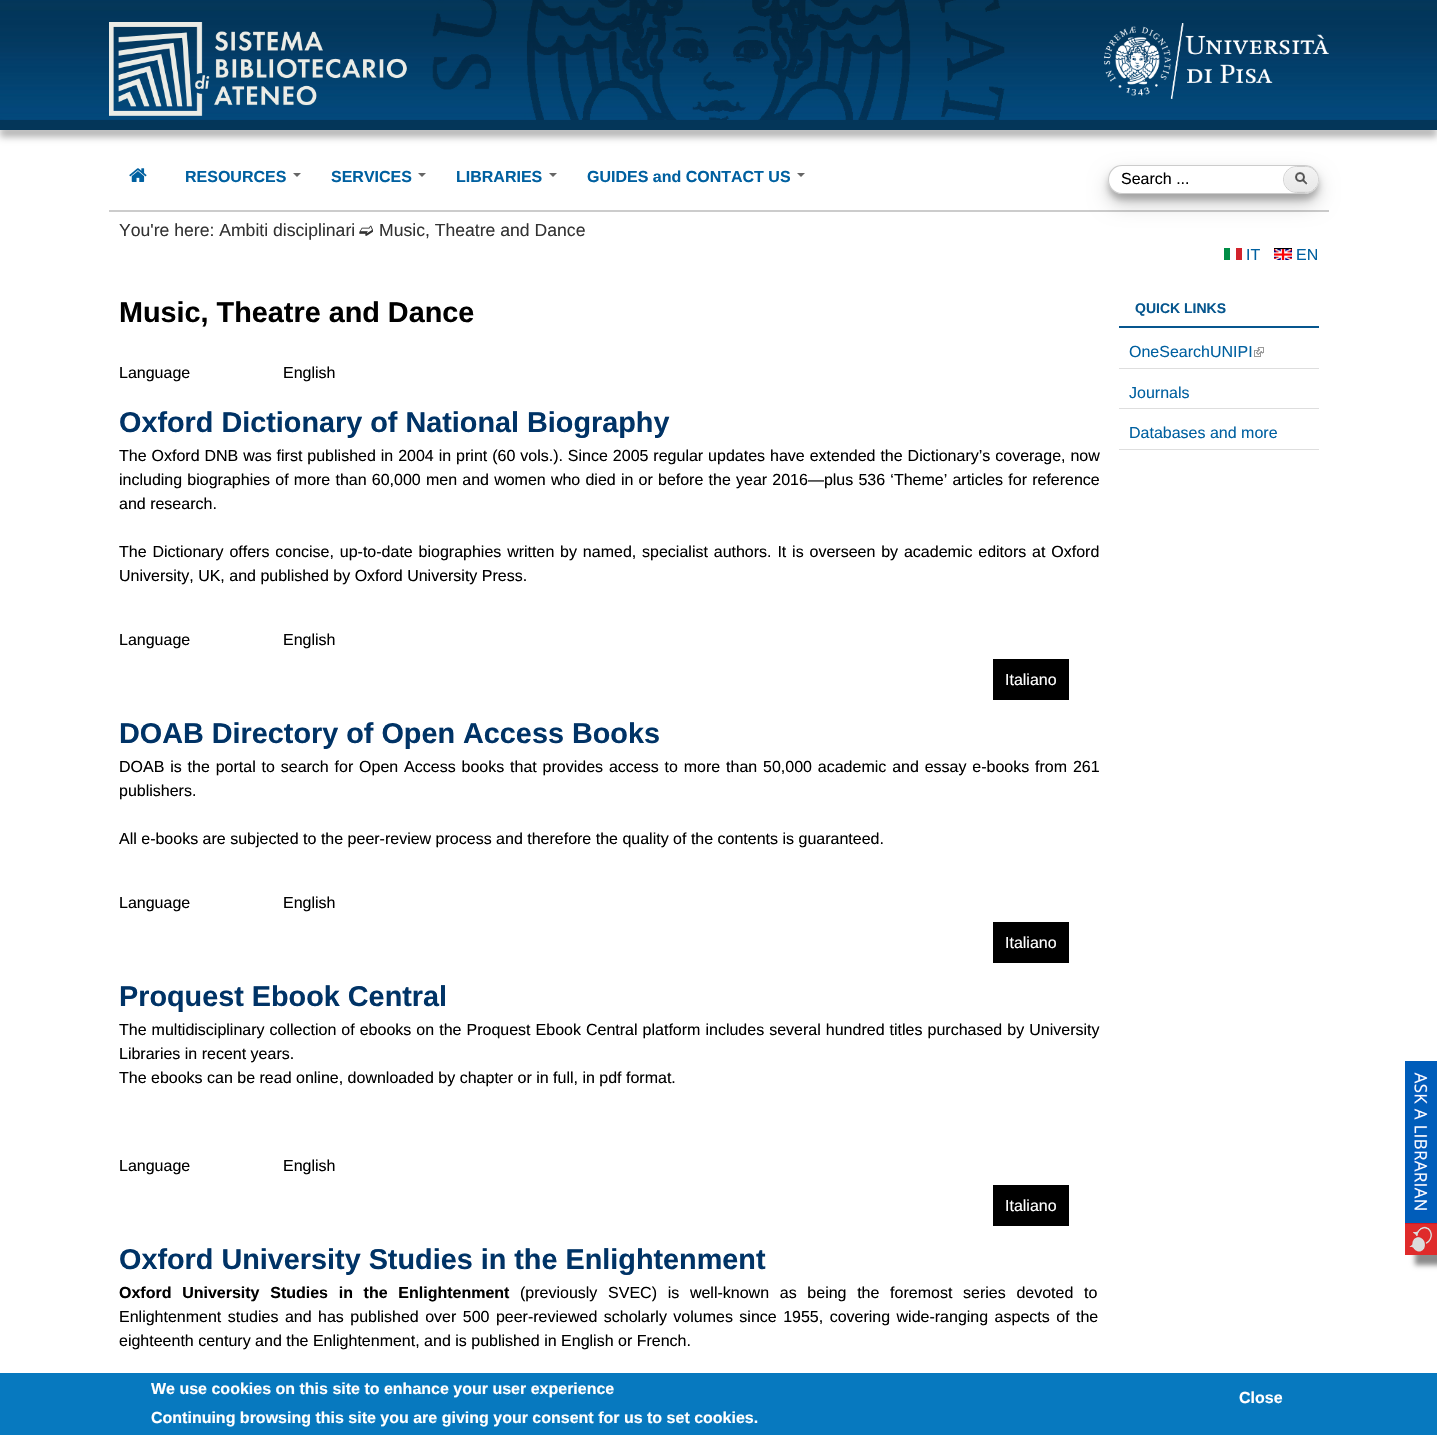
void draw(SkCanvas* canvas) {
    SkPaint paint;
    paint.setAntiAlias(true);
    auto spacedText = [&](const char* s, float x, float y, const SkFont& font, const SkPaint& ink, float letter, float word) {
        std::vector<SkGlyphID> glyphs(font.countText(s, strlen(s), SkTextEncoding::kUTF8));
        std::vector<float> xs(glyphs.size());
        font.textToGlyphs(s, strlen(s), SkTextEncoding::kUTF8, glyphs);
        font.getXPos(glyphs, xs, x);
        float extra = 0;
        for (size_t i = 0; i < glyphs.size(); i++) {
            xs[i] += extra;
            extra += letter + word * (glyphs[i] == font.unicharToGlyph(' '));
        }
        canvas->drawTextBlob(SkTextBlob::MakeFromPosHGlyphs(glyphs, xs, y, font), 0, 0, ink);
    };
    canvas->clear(0xFFFFFFFF);
    canvas->drawImageRect(SkImages::DeferredFromEncodedData(SkData::MakeFromFileName("img1.png")), SkRect::MakeXYWH(0, 0, 1437, 120), SkSamplingOptions());
    canvas->drawImageRect(SkImages::DeferredFromEncodedData(SkData::MakeFromFileName("img2.png")), SkRect::MakeXYWH(432, 0, 573, 120), SkSamplingOptions());
    canvas->drawImageRect(SkImages::DeferredFromEncodedData(SkData::MakeFromFileName("img3.png")), SkRect::MakeXYWH(109, 22, 298, 94), SkSamplingOptions());
    canvas->drawImageRect(SkImages::DeferredFromEncodedData(SkData::MakeFromFileName("img4.png")), SkRect::MakeXYWH(1104, 23, 225, 76), SkSamplingOptions());
    paint.setColor(0xFFB3B3B3);
    paint.setMaskFilter(SkMaskFilter::MakeBlur(kNormal_SkBlurStyle, 3.5f));
    canvas->drawRect(SkRect::MakeXYWH(0, 127, 1437, 10), paint);
    paint.setMaskFilter(nullptr);
    paint.setColor(0xFF043659);
    canvas->drawRect(SkRect::MakeXYWH(0, 120, 1437, 10), paint);
    paint.setColor(0xFFCCCCCC);
    canvas->drawRect(SkRect::MakeXYWH(109, 210, 1220, 2), paint);
    canvas->drawImageRect(SkImages::DeferredFromEncodedData(SkData::MakeFromFileName("img5.png")), SkRect::MakeXYWH(129, 168, 18, 14), SkSamplingOptions());
    SkFont font1(fontMgr->matchFamilyStyle("Liberation Sans", SkFontStyle::Bold()), 16);
    font1.setSubpixel(true);
    paint.setColor(0xFF0060A0);
    canvas->drawString("RESOURCES", 185, 182, font1, paint);
    paint.setColor(0xFF666666);
    canvas->drawPath(SkPathBuilder().moveTo(293, 173).lineTo(301, 173).lineTo(297, 177).close().detach(), paint);
    paint.setColor(0xFF0060A0);
    canvas->drawString("SERVICES", 331, 182, font1, paint);
    paint.setColor(0xFF666666);
    canvas->drawPath(SkPathBuilder().moveTo(418, 173).lineTo(426, 173).lineTo(422, 177).close().detach(), paint);
    paint.setColor(0xFF0060A0);
    canvas->drawString("LIBRARIES", 456, 182, font1, paint);
    paint.setColor(0xFF666666);
    canvas->drawPath(SkPathBuilder().moveTo(549, 173).lineTo(557, 173).lineTo(553, 177).close().detach(), paint);
    paint.setColor(0xFF0060A0);
    canvas->drawString("GUIDES and CONTACT US", 587, 182, font1, paint);
    paint.setColor(0xFF666666);
    canvas->drawPath(SkPathBuilder().moveTo(797, 173).lineTo(805, 173).lineTo(801, 177).close().detach(), paint);
    canvas->save();
    canvas->clipPath(SkPathBuilder(SkPathFillType::kEvenOdd).moveTo(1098, 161).lineTo(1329, 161).lineTo(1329, 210).lineTo(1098, 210).close().moveTo(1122.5f, 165).lineTo(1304.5f, 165).cubicTo(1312.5f, 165, 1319, 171.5f, 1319, 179.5f).cubicTo(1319, 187.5f, 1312.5f, 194, 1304.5f, 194).lineTo(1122.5f, 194).cubicTo(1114.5f, 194, 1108, 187.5f, 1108, 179.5f).cubicTo(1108, 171.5f, 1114.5f, 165, 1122.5f, 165).close().detach(), true);
    paint.setColor(0x3B000000);
    paint.setMaskFilter(SkMaskFilter::MakeBlur(kNormal_SkBlurStyle, 3));
    canvas->drawRoundRect(SkRect::MakeXYWH(1108, 171, 211, 29), 14.5f, 14.5f, paint);
    paint.setMaskFilter(nullptr);
    canvas->restore();
    canvas->save();
    canvas->clipPath(SkPathBuilder(SkPathFillType::kEvenOdd).moveTo(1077, 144).lineTo(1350, 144).lineTo(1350, 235).lineTo(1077, 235).close().moveTo(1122.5f, 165).lineTo(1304.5f, 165).cubicTo(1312.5f, 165, 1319, 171.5f, 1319, 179.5f).cubicTo(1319, 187.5f, 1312.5f, 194, 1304.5f, 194).lineTo(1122.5f, 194).cubicTo(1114.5f, 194, 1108, 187.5f, 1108, 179.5f).cubicTo(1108, 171.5f, 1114.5f, 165, 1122.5f, 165).close().detach(), true);
    paint.setColor(0x30000000);
    paint.setMaskFilter(SkMaskFilter::MakeBlur(kNormal_SkBlurStyle, 10));
    canvas->drawRoundRect(SkRect::MakeXYWH(1108, 175, 211, 29), 14.5f, 14.5f, paint);
    paint.setMaskFilter(nullptr);
    canvas->restore();
    paint.setColor(0xFFCCCCCC);
    canvas->drawPath(SkPathBuilder(SkPathFillType::kEvenOdd).moveTo(1122, 165).lineTo(1304, 165).cubicTo(1313, 165, 1319, 171, 1319, 180).cubicTo(1319, 188, 1313, 194, 1304, 194).lineTo(1122, 194).cubicTo(1114, 194, 1108, 188, 1108, 180).cubicTo(1108, 171, 1114, 165, 1122, 165).close().moveTo(1122, 166).lineTo(1304, 166).cubicTo(1313, 166, 1319, 172, 1319, 180).cubicTo(1319, 187, 1313, 193, 1304, 193).lineTo(1122, 193).cubicTo(1115, 193, 1109, 187, 1109, 180).cubicTo(1109, 172, 1115, 166, 1122, 166).close().detach(), paint);
    SkFont font2(fontMgr->matchFamilyStyle("Liberation Sans", SkFontStyle::Normal()), 16);
    font2.setSubpixel(true);
    paint.setColor(0xFF000000);
    canvas->drawString("Search ...", 1121, 184, font2, paint);
    paint.setStyle(SkPaint::kStroke_Style);
    paint.setStrokeWidth(1);
    paint.setColor(0xFFCCCCCC);
    canvas->drawRoundRect(SkRect::MakeXYWH(1283.5f, 166.5f, 35, 26), 13, 13, paint);
    canvas->drawImageRect(SkImages::DeferredFromEncodedData(SkData::MakeFromFileName("img6.png")), SkRect::MakeXYWH(1284, 167, 34, 25), SkSamplingOptions());
    SkFont font3(fontMgr->matchFamilyStyle("Liberation Sans", SkFontStyle::Normal()), 17.6f);
    font3.setSubpixel(true);
    paint.setStyle(SkPaint::kFill_Style);
    paint.setColor(0xFF333333);
    canvas->drawString("You're here: Ambiti disciplinari", 119, 236, font3, paint);
    SkFont font4(fontMgr->matchFamilyStyle("DejaVu Sans", SkFontStyle::Normal()), 17.6f);
    font4.setSubpixel(true);
    canvas->drawString("➫", 359, 236, font4, paint);
    canvas->drawString("Music, Theatre and Dance", 379, 236, font3, paint);
    canvas->drawImageRect(SkImages::DeferredFromEncodedData(SkData::MakeFromFileName("img7.png")), SkRect::MakeXYWH(1224, 248, 18, 12), SkSamplingOptions());
    paint.setColor(0xFF0060A0);
    canvas->drawString("IT", 1246, 260, font2, paint);
    canvas->drawImageRect(SkImages::DeferredFromEncodedData(SkData::MakeFromFileName("img8.png")), SkRect::MakeXYWH(1274, 248, 18, 12), SkSamplingOptions());
    canvas->drawString("EN", 1296, 260, font2, paint);
    SkFont font5(fontMgr->matchFamilyStyle("Liberation Sans", SkFontStyle::Bold()), 28.8f);
    font5.setSubpixel(true);
    paint.setColor(0xFF000000);
    canvas->drawString("Music, Theatre and Dance", 119, 322, font5, paint);
    canvas->drawString("Language", 119, 378, font2, paint);
    canvas->drawString("English", 283, 378, font2, paint);
    paint.setColor(0xFF003366);
    canvas->drawString("Oxford Dictionary of National Biography", 119, 432, font5, paint);
    paint.setColor(0xFF000000);
    spacedText("The Oxford DNB was first published in 2004 in print (60 vols.). Since 2005 regular updates have extended the Dictionary’s coverage, now", 119, 461, font2, paint, 0, 0.5f);
    spacedText("including biographies of more than 60,000 men and women who died in or before the year 2016—plus 536 ‘Theme’ articles for reference", 119, 485, font2, paint, 0, 0.75f);
    canvas->drawString("and research.", 119, 509, font2, paint);
    spacedText("The Dictionary offers concise, up-to-date biographies written by named, specialist authors. It is overseen by academic editors at Oxford", 119, 557, font2, paint, 0, 1.4f);
    canvas->drawString("University, UK, and published by Oxford University Press.", 119, 581, font2, paint);
    canvas->drawString("Language", 119, 645, font2, paint);
    canvas->drawString("English", 283, 645, font2, paint);
    canvas->drawRect(SkRect::MakeXYWH(993, 659, 76, 41), paint);
    paint.setColor(0xFFFFFFFF);
    canvas->drawString("Italiano", 1005, 685, font2, paint);
    paint.setColor(0xFF003366);
    canvas->drawString("DOAB Directory of Open Access Books", 119, 743, font5, paint);
    paint.setColor(0xFF000000);
    spacedText("DOAB is the portal to search for Open Access books that provides access to more than 50,000 academic and essay e-books from 261", 119, 772, font2, paint, 0, 1.4f);
    canvas->drawString("publishers.", 119, 796, font2, paint);
    canvas->drawString("All e-books are subjected to the peer-review process and therefore the quality of the contents is guaranteed.", 119, 844, font2, paint);
    canvas->drawString("Language", 119, 908, font2, paint);
    canvas->drawString("English", 283, 908, font2, paint);
    canvas->drawRect(SkRect::MakeXYWH(993, 922, 76, 41), paint);
    paint.setColor(0xFFFFFFFF);
    canvas->drawString("Italiano", 1005, 948, font2, paint);
    paint.setColor(0xFF003366);
    canvas->drawString("Proquest Ebook Central", 119, 1006, font5, paint);
    paint.setColor(0xFF000000);
    spacedText("The multidisciplinary collection of ebooks on the Proquest Ebook Central platform includes several hundred titles purchased by University", 119, 1035, font2, paint, 0, 0.6f);
    canvas->drawString("Libraries in recent years.", 119, 1059, font2, paint);
    canvas->drawString("The ebooks can be read online, downloaded by chapter or in full, in pdf format.", 119, 1083, font2, paint);
    canvas->drawString("Language", 119, 1171, font2, paint);
    canvas->drawString("English", 283, 1171, font2, paint);
    canvas->drawRect(SkRect::MakeXYWH(993, 1185, 76, 41), paint);
    paint.setColor(0xFFFFFFFF);
    canvas->drawString("Italiano", 1005, 1211, font2, paint);
    paint.setColor(0xFF003366);
    canvas->drawString("Oxford University Studies in the Enlightenment", 119, 1269, font5, paint);
    paint.setColor(0xFF000000);
    spacedText("Oxford University Studies in the Enlightenment", 119, 1298, font1, paint, 0, 6.25f);
    spacedText("(previously SVEC) is well-known as being the foremost series devoted to", 520, 1298, font2, paint, 0, 6.25f);
    spacedText("Enlightenment studies and has published over 500 peer-reviewed scholarly volumes since 1955, covering wide-ranging aspects of the", 119, 1322, font2, paint, 0, 2);
    canvas->drawString("eighteenth century and the Enlightenment, and is published in English or French.", 119, 1346, font2, paint);
    paint.setColor(0xFF8A8A8A);
    paint.setMaskFilter(SkMaskFilter::MakeBlur(kNormal_SkBlurStyle, 2.5f));
    canvas->drawRect(SkRect::MakeXYWH(1415, 1071, 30, 194), paint);
    paint.setMaskFilter(nullptr);
    canvas->drawImageRect(SkImages::DeferredFromEncodedData(SkData::MakeFromFileName("img9.png")), SkRect::MakeXYWH(1405, 1061, 32, 194), SkSamplingOptions());
    paint.setColor(0xFF06568E);
    canvas->drawRect(SkRect::MakeXYWH(1119, 326, 200, 2), paint);
    SkFont font6(fontMgr->matchFamilyStyle("Liberation Sans", SkFontStyle::Bold()), 14);
    font6.setSubpixel(true);
    canvas->drawString("QUICK LINKS", 1135, 313, font6, paint);
    paint.setColor(0xFFDEDEDE);
    canvas->drawRect(SkRect::MakeXYWH(1119, 368, 200, 1), paint);
    paint.setColor(0xFF0060A0);
    canvas->drawString("OneSearchUNIPI", 1129, 357, font2, paint);
    canvas->drawImageRect(SkImages::DeferredFromEncodedData(SkData::MakeFromFileName("img10.png")), SkRect::MakeXYWH(1254, 347, 10, 10), SkSamplingOptions());
    paint.setColor(0xFFDEDEDE);
    canvas->drawRect(SkRect::MakeXYWH(1119, 408, 200, 1), paint);
    paint.setColor(0xFF0060A0);
    canvas->drawString("Journals", 1129, 398, font2, paint);
    paint.setColor(0xFFDEDEDE);
    canvas->drawRect(SkRect::MakeXYWH(1119, 449, 200, 1), paint);
    paint.setColor(0xFF0060A0);
    canvas->drawString("Databases and more", 1129, 438, font2, paint);
    paint.setColor(0xFF0779BF);
    canvas->drawRect(SkRect::MakeXYWH(0, 1373, 1437, 62), paint);
    paint.setColor(0xFFFFFFFF);
    canvas->drawString("We use cookies on this site to enhance your user experience", 151, 1394, font1, paint);
    canvas->drawString("Continuing browsing this site you are giving your consent for us to set cookies.", 151, 1423, font1, paint);
    canvas->drawString("Close", 1239, 1403, font1, paint);
}
